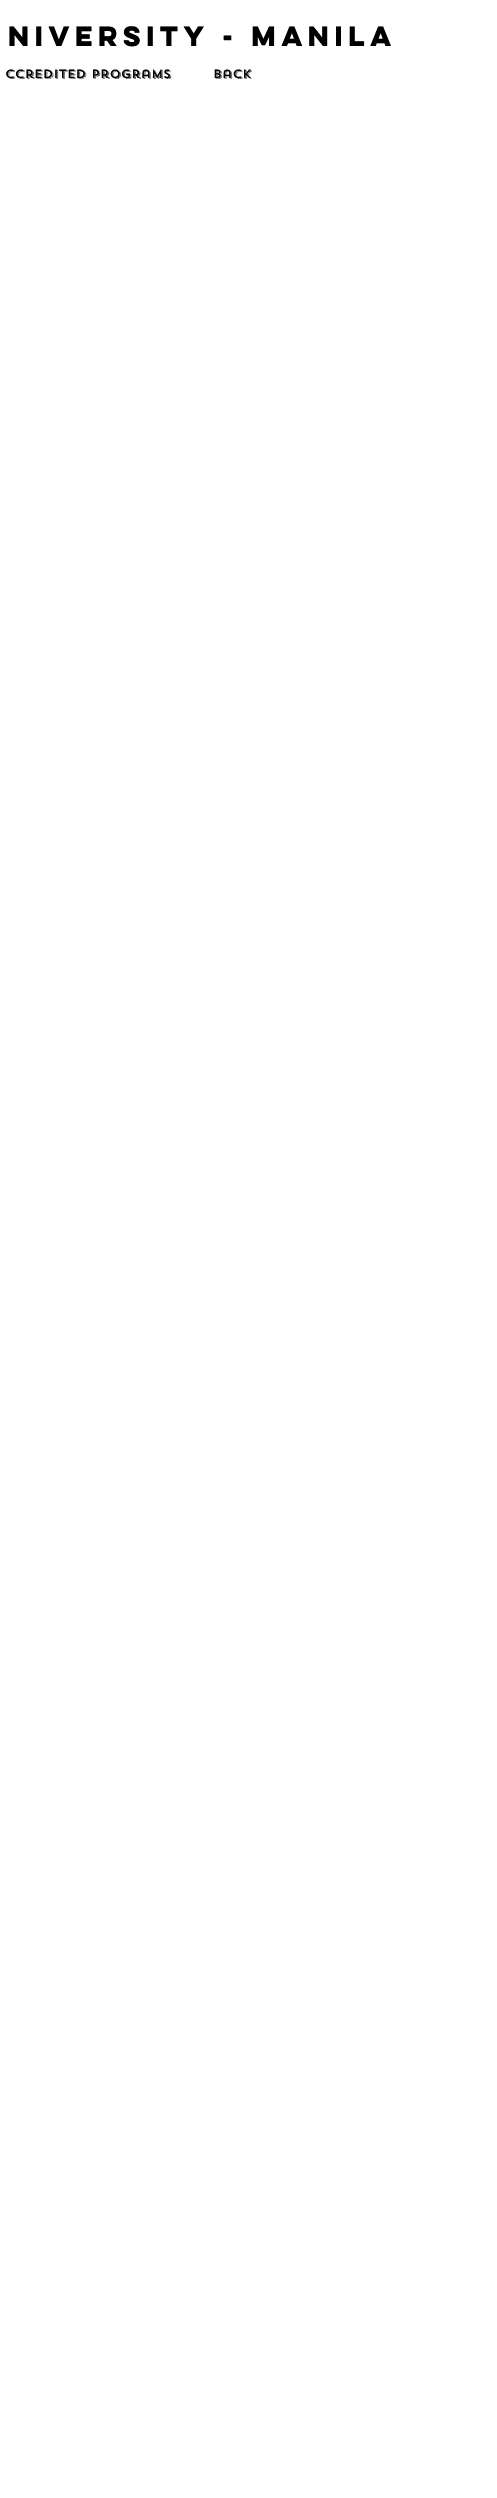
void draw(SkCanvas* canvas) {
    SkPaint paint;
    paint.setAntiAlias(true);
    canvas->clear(0xFFFFFFFF);
    SkFont font1(fontMgr->matchFamilyStyle("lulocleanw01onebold", SkFontStyle::Bold()), 25);
    font1.setSubpixel(true);
    paint.setColor(0xFF000000);
    canvas->drawString("niversity - manila", 8, 46, font1, paint);
    SkFont font2(fontMgr->matchFamilyStyle("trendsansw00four", SkFontStyle(500, SkFontStyle::kNormal_Width, SkFontStyle::kUpright_Slant)), 12);
    font2.setSubpixel(true);
    canvas->drawString("ccredited programs", 5, 78, font2, paint);
    canvas->drawString("back", 213, 78, font2, paint);
}
